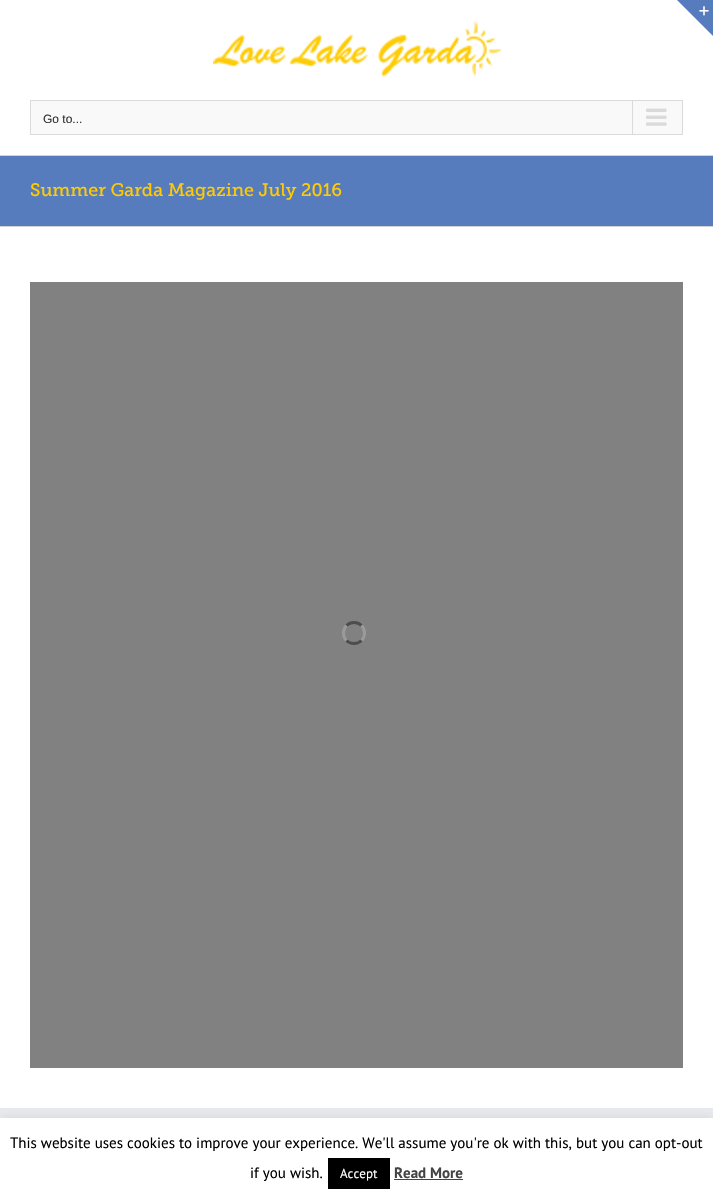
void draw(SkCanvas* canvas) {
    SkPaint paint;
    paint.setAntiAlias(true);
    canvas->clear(0xFFFFFFFF);
    paint.setColor(0xFF567CBD);
    canvas->drawPath(SkPathBuilder().moveTo(677, 0).lineTo(713, 0).lineTo(713, 36).close().detach(), paint);
    canvas->drawImageRect(SkImages::DeferredFromEncodedData(SkData::MakeFromFileName("img1.png")), SkRect::MakeXYWH(699, 6, 10, 10), SkSamplingOptions());
    canvas->drawImageRect(SkImages::DeferredFromEncodedData(SkData::MakeFromFileName("img2.png")), SkRect::MakeXYWH(213, 20, 288, 57), SkSamplingOptions());
    paint.setColor(0xFFF9F9F9);
    canvas->drawRect(SkRect::MakeXYWH(30.5f, 100.5f, 652, 34), paint);
    paint.setStyle(SkPaint::kStroke_Style);
    paint.setStrokeWidth(1);
    paint.setColor(0xFFDADADA);
    canvas->drawRect(SkRect::MakeXYWH(30.5f, 100.5f, 652, 34), paint);
    SkFont font1(fontMgr->matchFamilyStyle("Liberation Sans", SkFontStyle::Normal()), 12);
    font1.setSubpixel(true);
    paint.setStyle(SkPaint::kFill_Style);
    paint.setColor(0xFF333333);
    canvas->drawString("Go to...", 43, 123, font1, paint);
    paint.setColor(0xFFDADADA);
    canvas->drawRect(SkRect::MakeXYWH(632, 101, 1, 33), paint);
    canvas->drawImageRect(SkImages::DeferredFromEncodedData(SkData::MakeFromFileName("img3.png")), SkRect::MakeXYWH(646, 108, 21, 18), SkSamplingOptions());
    paint.setColor(0xFF567CBD);
    canvas->drawRect(SkRect::MakeXYWH(0, 156, 713, 70), paint);
    paint.setColor(0xFFD2D3D4);
    canvas->drawRect(SkRect::MakeXYWH(0, 155, 713, 1), paint);
    canvas->drawRect(SkRect::MakeXYWH(0, 226, 713, 1), paint);
    SkFont font2(fontMgr->matchFamilyStyle("Museo Slab", SkFontStyle::Normal()), 18);
    font2.setSubpixel(true);
    paint.setColor(0xFFFFCB05);
    canvas->drawString("Summer Garda Magazine July 2016", 30, 196, font2, paint);
    paint.setColor(0xFF818181);
    canvas->drawRect(SkRect::MakeXYWH(30, 282, 653, 786), paint);
    paint.setStyle(SkPaint::kStroke_Style);
    paint.setStrokeWidth(3);
    paint.setColor(0xFF4D4D4D);
    canvas->drawPath(SkPathBuilder().moveTo(346.5f, 625.5f).cubicTo(350.5f, 621.5f, 357.5f, 621.5f, 361.5f, 625.5f).detach(), paint);
    paint.setColor(0x33FFFFFF);
    canvas->drawPath(SkPathBuilder().moveTo(361.5f, 625.5f).cubicTo(365.5f, 629.5f, 365.5f, 636.5f, 361.5f, 640.5f).detach(), paint);
    paint.setColor(0x66000000);
    canvas->drawPath(SkPathBuilder().moveTo(361.5f, 640.5f).cubicTo(357.5f, 644.5f, 350.5f, 644.5f, 346.5f, 640.5f).detach(), paint);
    paint.setColor(0x33FFFFFF);
    canvas->drawPath(SkPathBuilder().moveTo(346.5f, 640.5f).cubicTo(342.5f, 636.5f, 342.5f, 629.5f, 346.5f, 625.5f).detach(), paint);
    paint.setStyle(SkPaint::kFill_Style);
    paint.setColor(0xFFE9EAEE);
    canvas->drawRect(SkRect::MakeXYWH(0, 1108, 713, 10), paint);
    paint.setColor(0x4DACABAB);
    paint.setMaskFilter(SkMaskFilter::MakeBlur(kNormal_SkBlurStyle, 5));
    canvas->drawRect(SkRect::MakeXYWH(0, 1117, 713, 83), paint);
    paint.setMaskFilter(nullptr);
    paint.setColor(0xFFFFFFFF);
    canvas->drawRect(SkRect::MakeXYWH(0, 1118, 713, 83), paint);
    SkFont font3(fontMgr->matchFamilyStyle("PT Sans", SkFontStyle::Normal()), 15);
    font3.setSubpixel(true);
    paint.setColor(0xFF000000);
    canvas->drawString("This website uses cookies to improve your experience. We'll assume you're ok with this, but you can opt-out", 10, 1148, font3, paint);
    canvas->drawString("if you wish.", 250, 1178, font3, paint);
    canvas->drawRect(SkRect::MakeXYWH(328, 1158, 62, 31), paint);
    SkFont font4(fontMgr->matchFamilyStyle("PT Sans", SkFontStyle::Normal()), 13);
    font4.setSubpixel(true);
    paint.setColor(0xFFFFFFFF);
    canvas->drawString("Accept", 340, 1178, font4, paint);
    SkFont font5(fontMgr->matchFamilyStyle("PT Sans", SkFontStyle::Bold()), 15);
    font5.setSubpixel(true);
    paint.setColor(0xFF444444);
    canvas->drawString("Read More", 394, 1178, font5, paint);
    canvas->drawRect(SkRect::MakeXYWH(394, 1179, 69, 1), paint);
}
